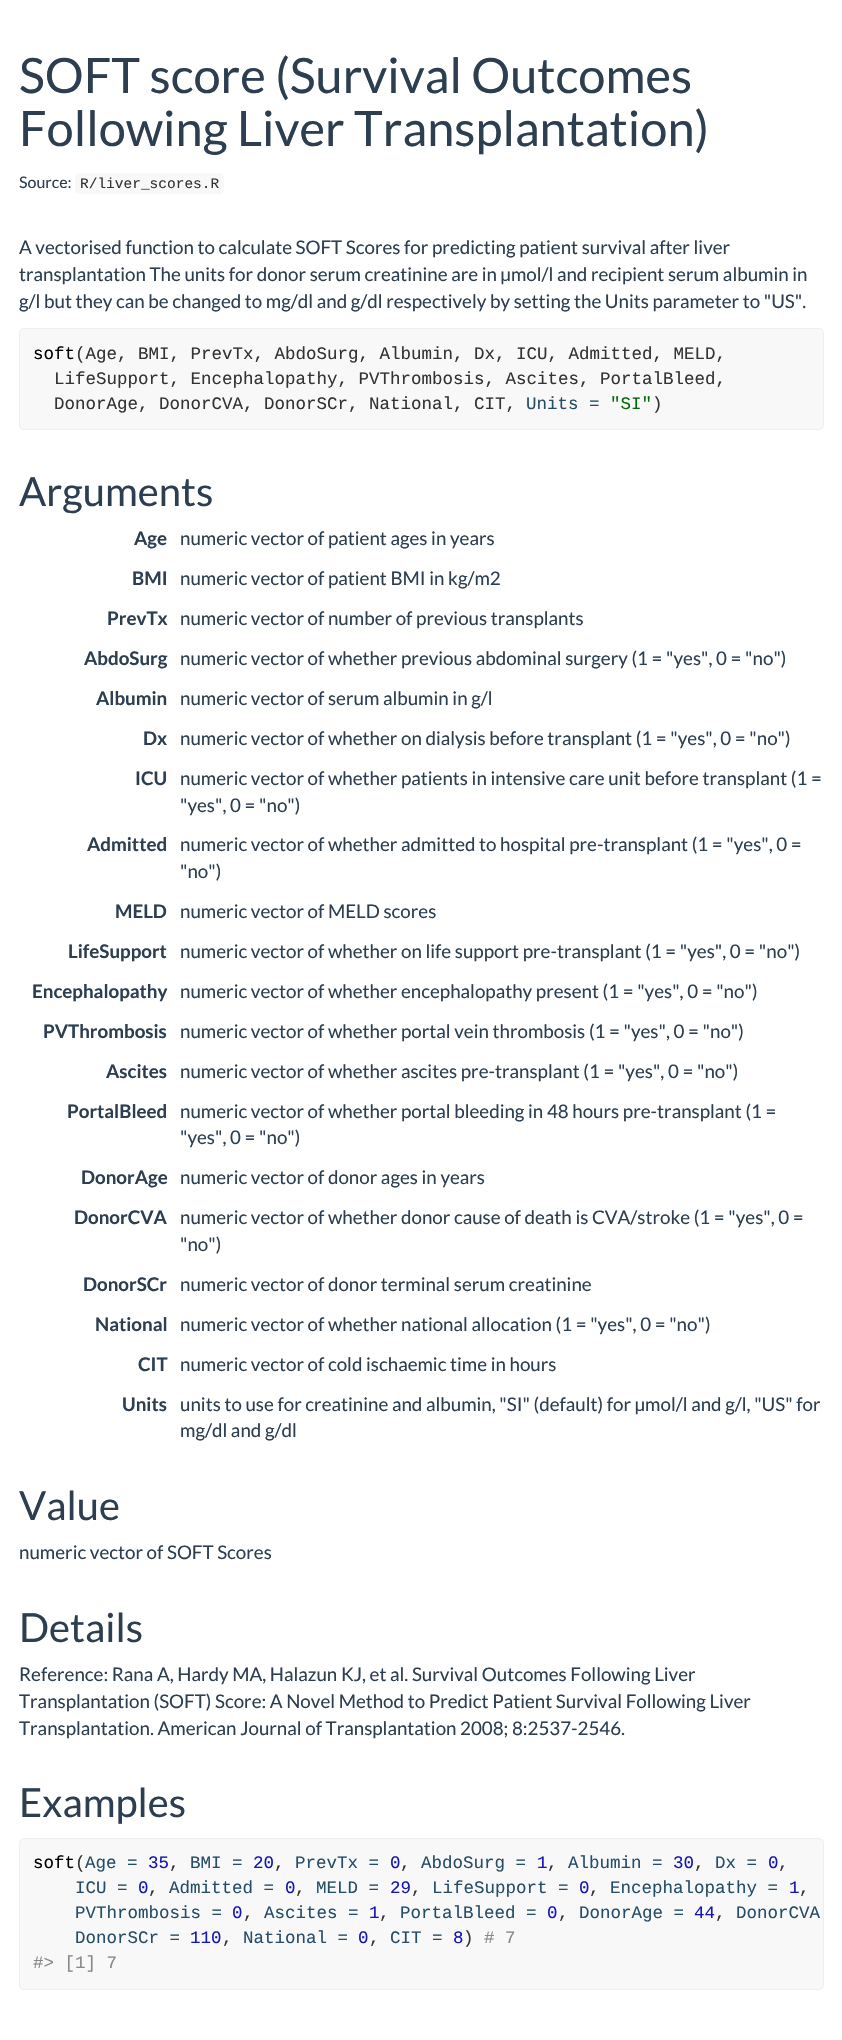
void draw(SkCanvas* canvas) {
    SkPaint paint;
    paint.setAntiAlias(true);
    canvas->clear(0xFFFFFFFF);
    SkFont font1(fontMgr->matchFamilyStyle("Lato", SkFontStyle::Normal()), 48.75f);
    font1.setSubpixel(true);
    paint.setColor(0xFF2C3E50);
    canvas->drawString("SOFT score (Survival Outcomes", 19, 93, font1, paint);
    canvas->drawString("Following Liver Transplantation)", 19, 146, font1, paint);
    SkFont font2(fontMgr->matchFamilyStyle("Lato", SkFontStyle::Normal()), 16);
    font2.setSubpixel(true);
    canvas->drawString("Source:", 19, 188, font2, paint);
    paint.setColor(0xFFF8F8F8);
    canvas->drawRoundRect(SkRect::MakeXYWH(75, 173, 149, 21), 5, 5, paint);
    SkFont font3(fontMgr->matchFamilyStyle("Liberation Mono", SkFontStyle::Normal()), 14.5f);
    font3.setSubpixel(true);
    paint.setColor(0xFF333333);
    canvas->drawString("R/liver_scores.R", 80, 188, font3, paint);
    SkFont font4(fontMgr->matchFamilyStyle("Lato", SkFontStyle::Normal()), 18.75f);
    font4.setSubpixel(true);
    paint.setColor(0xFF2C3E50);
    canvas->drawString("A vectorised function to calculate SOFT Scores for predicting patient survival after liver", 19, 254, font4, paint);
    canvas->drawString("transplantation The units for donor serum creatinine are in µmol/l and recipient serum albumin in", 19, 281, font4, paint);
    canvas->drawString("g/l but they can be changed to mg/dl and g/dl respectively by setting the Units parameter to \"US\".", 19, 308, font4, paint);
    paint.setColor(0xFFF8F8F8);
    canvas->drawRoundRect(SkRect::MakeXYWH(19.5f, 328.5f, 804, 101), 4.5f, 4.5f, paint);
    paint.setStyle(SkPaint::kStroke_Style);
    paint.setStrokeWidth(1);
    paint.setColor(0xFFEEEEEE);
    canvas->drawRoundRect(SkRect::MakeXYWH(19.5f, 328.5f, 804, 101), 4.5f, 4.5f, paint);
    SkFont font5(fontMgr->matchFamilyStyle("Liberation Mono", SkFontStyle::Normal()), 17.5f);
    font5.setSubpixel(true);
    paint.setStyle(SkPaint::kFill_Style);
    paint.setColor(0xFF000000);
    canvas->drawString("soft", 33, 359, font5, paint);
    paint.setColor(0xFF333333);
    canvas->drawString("(Age, BMI, PrevTx, AbdoSurg, Albumin, Dx, ICU, Admitted, MELD,", 75, 359, font5, paint);
    canvas->drawString("LifeSupport, Encephalopathy, PVThrombosis, Ascites, PortalBleed,", 54, 384, font5, paint);
    canvas->drawString("DonorAge, DonorCVA, DonorSCr, National, CIT,", 54, 409, font5, paint);
    paint.setColor(0xFF264D66);
    canvas->drawString("Units =", 526, 409, font5, paint);
    paint.setColor(0xFF036A07);
    canvas->drawString("\"SI\"", 610, 409, font5, paint);
    paint.setColor(0xFF333333);
    canvas->drawString(")", 652, 409, font5, paint);
    SkFont font6(fontMgr->matchFamilyStyle("Lato", SkFontStyle::Normal()), 40);
    font6.setSubpixel(true);
    paint.setColor(0xFF2C3E50);
    canvas->drawString("Arguments", 19, 506, font6, paint);
    SkFont font7(fontMgr->matchFamilyStyle("Lato", SkFontStyle::Bold()), 18.75f);
    font7.setSubpixel(true);
    canvas->drawString("Age", 134, 545, font7, paint);
    canvas->drawString("numeric vector of patient ages in years", 180, 545, font4, paint);
    canvas->drawString("BMI", 132, 585, font7, paint);
    canvas->drawString("numeric vector of patient BMI in kg/m2", 180, 585, font4, paint);
    canvas->drawString("PrevTx", 107, 625, font7, paint);
    canvas->drawString("numeric vector of number of previous transplants", 180, 625, font4, paint);
    canvas->drawString("AbdoSurg", 84, 665, font7, paint);
    canvas->drawString("numeric vector of whether previous abdominal surgery (1 = \"yes\", 0 = \"no\")", 180, 665, font4, paint);
    canvas->drawString("Albumin", 96, 705, font7, paint);
    canvas->drawString("numeric vector of serum albumin in g/l", 180, 705, font4, paint);
    canvas->drawString("Dx", 143, 745, font7, paint);
    canvas->drawString("numeric vector of whether on dialysis before transplant (1 = \"yes\", 0 = \"no\")", 180, 745, font4, paint);
    canvas->drawString("ICU", 135, 785, font7, paint);
    canvas->drawString("numeric vector of whether patients in intensive care unit before transplant (1 =", 180, 785, font4, paint);
    canvas->drawString("\"yes\", 0 = \"no\")", 180, 812, font4, paint);
    canvas->drawString("Admitted", 87, 851, font7, paint);
    canvas->drawString("numeric vector of whether admitted to hospital pre-transplant (1 = \"yes\", 0 =", 180, 851, font4, paint);
    canvas->drawString("\"no\")", 180, 878, font4, paint);
    canvas->drawString("MELD", 115, 918, font7, paint);
    canvas->drawString("numeric vector of MELD scores", 180, 918, font4, paint);
    canvas->drawString("LifeSupport", 68, 958, font7, paint);
    canvas->drawString("numeric vector of whether on life support pre-transplant (1 = \"yes\", 0 = \"no\")", 180, 958, font4, paint);
    canvas->drawString("Encephalopathy", 32, 998, font7, paint);
    canvas->drawString("numeric vector of whether encephalopathy present (1 = \"yes\", 0 = \"no\")", 180, 998, font4, paint);
    canvas->drawString("PVThrombosis", 43, 1038, font7, paint);
    canvas->drawString("numeric vector of whether portal vein thrombosis (1 = \"yes\", 0 = \"no\")", 180, 1038, font4, paint);
    canvas->drawString("Ascites", 106, 1078, font7, paint);
    canvas->drawString("numeric vector of whether ascites pre-transplant (1 = \"yes\", 0 = \"no\")", 180, 1078, font4, paint);
    canvas->drawString("PortalBleed", 67, 1118, font7, paint);
    canvas->drawString("numeric vector of whether portal bleeding in 48 hours pre-transplant (1 =", 180, 1118, font4, paint);
    canvas->drawString("\"yes\", 0 = \"no\")", 180, 1144, font4, paint);
    canvas->drawString("DonorAge", 81, 1184, font7, paint);
    canvas->drawString("numeric vector of donor ages in years", 180, 1184, font4, paint);
    canvas->drawString("DonorCVA", 74, 1224, font7, paint);
    canvas->drawString("numeric vector of whether donor cause of death is CVA/stroke (1 = \"yes\", 0 =", 180, 1224, font4, paint);
    canvas->drawString("\"no\")", 180, 1251, font4, paint);
    canvas->drawString("DonorSCr", 83, 1291, font7, paint);
    canvas->drawString("numeric vector of donor terminal serum creatinine", 180, 1291, font4, paint);
    canvas->drawString("National", 95, 1331, font7, paint);
    canvas->drawString("numeric vector of whether national allocation (1 = \"yes\", 0 = \"no\")", 180, 1331, font4, paint);
    canvas->drawString("CIT", 138, 1371, font7, paint);
    canvas->drawString("numeric vector of cold ischaemic time in hours", 180, 1371, font4, paint);
    canvas->drawString("Units", 122, 1411, font7, paint);
    canvas->drawString("units to use for creatinine and albumin, \"SI\" (default) for µmol/l and g/l, \"US\" for", 180, 1411, font4, paint);
    canvas->drawString("mg/dl and g/dl", 180, 1437, font4, paint);
    canvas->drawString("Value", 19, 1520, font6, paint);
    canvas->drawString("numeric vector of SOFT Scores", 19, 1559, font4, paint);
    canvas->drawString("Details", 19, 1642, font6, paint);
    canvas->drawString("Reference: Rana A, Hardy MA, Halazun KJ, et al. Survival Outcomes Following Liver", 19, 1681, font4, paint);
    canvas->drawString("Transplantation (SOFT) Score: A Novel Method to Predict Patient Survival Following Liver", 19, 1708, font4, paint);
    canvas->drawString("Transplantation. American Journal of Transplantation 2008; 8:2537-2546.", 19, 1735, font4, paint);
    canvas->drawString("Examples", 19, 1817, font6, paint);
    paint.setColor(0xFFF8F8F8);
    canvas->drawRoundRect(SkRect::MakeXYWH(19.5f, 1838.5f, 804, 151), 4.5f, 4.5f, paint);
    paint.setStyle(SkPaint::kStroke_Style);
    paint.setColor(0xFFEEEEEE);
    canvas->drawRoundRect(SkRect::MakeXYWH(19.5f, 1838.5f, 804, 151), 4.5f, 4.5f, paint);
    paint.setStyle(SkPaint::kFill_Style);
    paint.setColor(0xFF000000);
    canvas->drawString("soft", 33, 1868, font5, paint);
    paint.setColor(0xFF333333);
    canvas->drawString("(", 75, 1868, font5, paint);
    paint.setColor(0xFF264D66);
    canvas->drawString("Age =", 85, 1868, font5, paint);
    paint.setColor(0xFF1514B5);
    canvas->drawString("35", 148, 1868, font5, paint);
    paint.setColor(0xFF333333);
    canvas->drawString(",", 169, 1868, font5, paint);
    paint.setColor(0xFF264D66);
    canvas->drawString("BMI =", 190, 1868, font5, paint);
    paint.setColor(0xFF1514B5);
    canvas->drawString("20", 253, 1868, font5, paint);
    paint.setColor(0xFF333333);
    canvas->drawString(",", 274, 1868, font5, paint);
    paint.setColor(0xFF264D66);
    canvas->drawString("PrevTx =", 295, 1868, font5, paint);
    paint.setColor(0xFF1514B5);
    canvas->drawString("0", 390, 1868, font5, paint);
    paint.setColor(0xFF333333);
    canvas->drawString(",", 400, 1868, font5, paint);
    paint.setColor(0xFF264D66);
    canvas->drawString("AbdoSurg =", 421, 1868, font5, paint);
    paint.setColor(0xFF1514B5);
    canvas->drawString("1", 537, 1868, font5, paint);
    paint.setColor(0xFF333333);
    canvas->drawString(",", 547, 1868, font5, paint);
    paint.setColor(0xFF264D66);
    canvas->drawString("Albumin =", 568, 1868, font5, paint);
    paint.setColor(0xFF1514B5);
    canvas->drawString("30", 673, 1868, font5, paint);
    paint.setColor(0xFF333333);
    canvas->drawString(",", 694, 1868, font5, paint);
    paint.setColor(0xFF264D66);
    canvas->drawString("Dx =", 715, 1868, font5, paint);
    paint.setColor(0xFF1514B5);
    canvas->drawString("0", 768, 1868, font5, paint);
    paint.setColor(0xFF333333);
    canvas->drawString(",", 778, 1868, font5, paint);
    paint.setColor(0xFF264D66);
    canvas->drawString("ICU =", 75, 1893, font5, paint);
    paint.setColor(0xFF1514B5);
    canvas->drawString("0", 138, 1893, font5, paint);
    paint.setColor(0xFF333333);
    canvas->drawString(",", 148, 1893, font5, paint);
    paint.setColor(0xFF264D66);
    canvas->drawString("Admitted =", 169, 1893, font5, paint);
    paint.setColor(0xFF1514B5);
    canvas->drawString("0", 285, 1893, font5, paint);
    paint.setColor(0xFF333333);
    canvas->drawString(",", 295, 1893, font5, paint);
    paint.setColor(0xFF264D66);
    canvas->drawString("MELD =", 316, 1893, font5, paint);
    paint.setColor(0xFF1514B5);
    canvas->drawString("29", 390, 1893, font5, paint);
    paint.setColor(0xFF333333);
    canvas->drawString(",", 411, 1893, font5, paint);
    paint.setColor(0xFF264D66);
    canvas->drawString("LifeSupport =", 432, 1893, font5, paint);
    paint.setColor(0xFF1514B5);
    canvas->drawString("0", 579, 1893, font5, paint);
    paint.setColor(0xFF333333);
    canvas->drawString(",", 589, 1893, font5, paint);
    paint.setColor(0xFF264D66);
    canvas->drawString("Encephalopathy =", 610, 1893, font5, paint);
    paint.setColor(0xFF1514B5);
    canvas->drawString("1", 789, 1893, font5, paint);
    paint.setColor(0xFF333333);
    canvas->drawString(",", 799, 1893, font5, paint);
    paint.setColor(0xFF264D66);
    canvas->drawString("PVThrombosis =", 75, 1918, font5, paint);
    paint.setColor(0xFF1514B5);
    canvas->drawString("0", 232, 1918, font5, paint);
    paint.setColor(0xFF333333);
    canvas->drawString(",", 243, 1918, font5, paint);
    paint.setColor(0xFF264D66);
    canvas->drawString("Ascites =", 264, 1918, font5, paint);
    paint.setColor(0xFF1514B5);
    canvas->drawString("1", 369, 1918, font5, paint);
    paint.setColor(0xFF333333);
    canvas->drawString(",", 379, 1918, font5, paint);
    paint.setColor(0xFF264D66);
    canvas->drawString("PortalBleed =", 400, 1918, font5, paint);
    paint.setColor(0xFF1514B5);
    canvas->drawString("0", 547, 1918, font5, paint);
    paint.setColor(0xFF333333);
    canvas->drawString(",", 558, 1918, font5, paint);
    paint.setColor(0xFF264D66);
    canvas->drawString("DonorAge =", 579, 1918, font5, paint);
    paint.setColor(0xFF1514B5);
    canvas->drawString("44", 694, 1918, font5, paint);
    paint.setColor(0xFF333333);
    canvas->drawString(",", 715, 1918, font5, paint);
    paint.setColor(0xFF264D66);
    canvas->drawString("DonorCVA", 736, 1918, font5, paint);
    canvas->drawString("DonorSCr =", 75, 1943, font5, paint);
    paint.setColor(0xFF1514B5);
    canvas->drawString("110", 190, 1943, font5, paint);
    paint.setColor(0xFF333333);
    canvas->drawString(",", 222, 1943, font5, paint);
    paint.setColor(0xFF264D66);
    canvas->drawString("National =", 243, 1943, font5, paint);
    paint.setColor(0xFF1514B5);
    canvas->drawString("0", 358, 1943, font5, paint);
    paint.setColor(0xFF333333);
    canvas->drawString(",", 369, 1943, font5, paint);
    paint.setColor(0xFF264D66);
    canvas->drawString("CIT =", 390, 1943, font5, paint);
    paint.setColor(0xFF1514B5);
    canvas->drawString("8", 453, 1943, font5, paint);
    paint.setColor(0xFF333333);
    canvas->drawString(")", 463, 1943, font5, paint);
    paint.setColor(0xFF888888);
    canvas->drawString("# 7", 484, 1943, font5, paint);
    canvas->drawString("#> [1] 7", 33, 1968, font5, paint);
}
